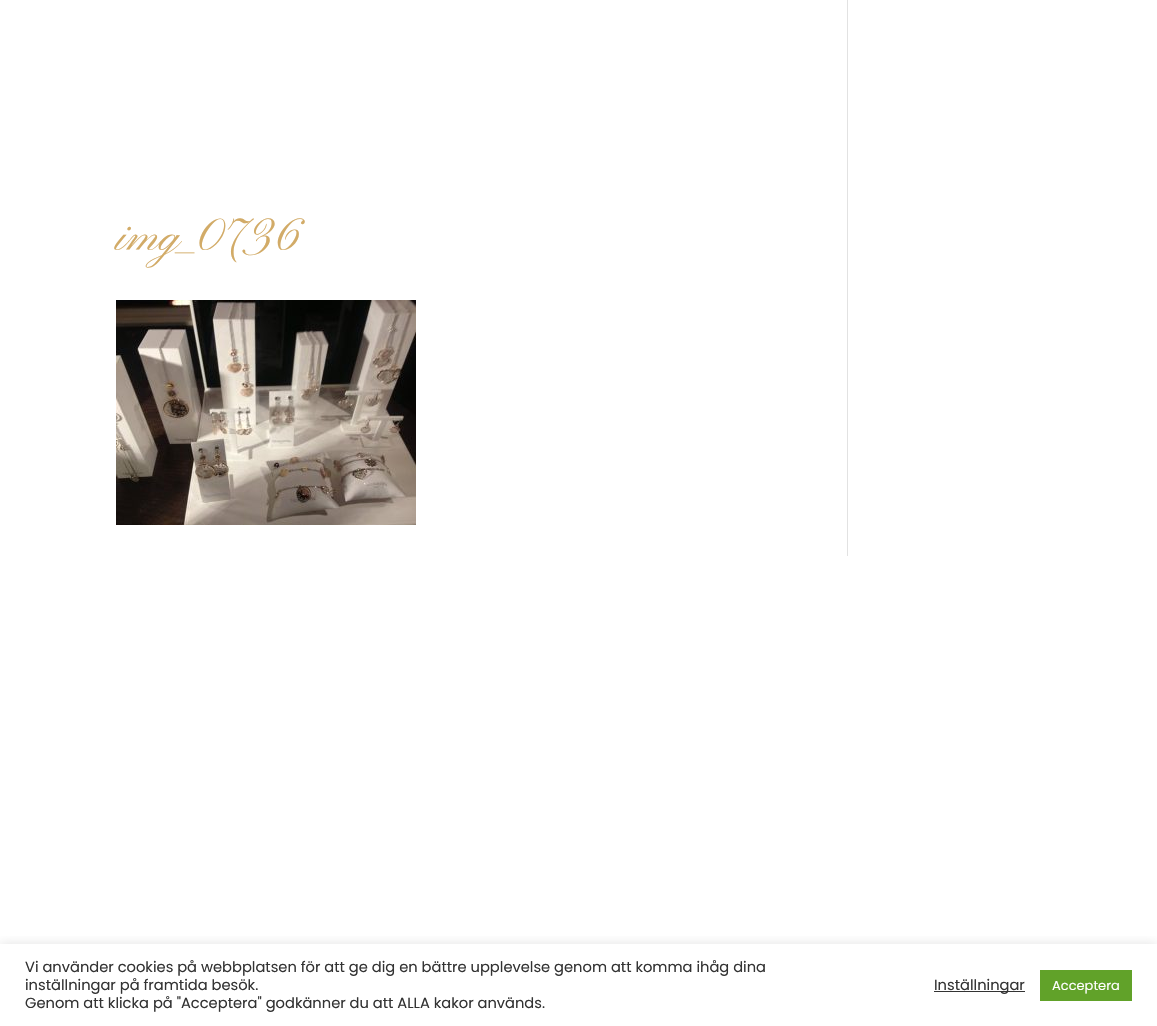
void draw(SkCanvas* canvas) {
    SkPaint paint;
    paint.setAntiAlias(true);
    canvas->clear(0xFFFFFFFF);
    SkFont font1(fontMgr->matchFamilyStyle("Pinyon Script", SkFontStyle::Normal()), 46);
    font1.setSubpixel(true);
    paint.setColor(0xFFD2AB67);
    canvas->drawString("img_0736", 116, 250, font1, paint);
    canvas->drawImageRect(SkImages::DeferredFromEncodedData(SkData::MakeFromFileName("img1.png")), SkRect::MakeXYWH(116, 300, 300, 225), SkSamplingOptions());
    paint.setColor(0xFFE2E2E2);
    canvas->drawRect(SkRect::MakeXYWH(847, 0, 1, 556), paint);
    canvas->save();
    canvas->clipRect(SkRect::MakeXYWH(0, 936, 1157, 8));
    paint.setColor(0x4DACABAB);
    paint.setMaskFilter(SkMaskFilter::MakeBlur(kNormal_SkBlurStyle, 5));
    canvas->drawRect(SkRect::MakeXYWH(0, 943, 1157, 82), paint);
    paint.setMaskFilter(nullptr);
    canvas->restore();
    SkFont font2(fontMgr->matchFamilyStyle("Poppins", SkFontStyle::Normal()), 14.67f);
    font2.setSubpixel(true);
    paint.setColor(0xFF333333);
    canvas->drawString("Vi använder cookies på webbplatsen för att ge dig en bättre upplevelse genom att komma ihåg dina", 25, 972, font2, paint);
    canvas->drawString("inställningar på framtida besök.", 25, 990, font2, paint);
    canvas->drawString("Genom att klicka på \"Acceptera\" godkänner du att ALLA kakor används.", 25, 1008, font2, paint);
    canvas->drawRect(SkRect::MakeXYWH(934, 991, 91, 1), paint);
    canvas->drawString("Inställningar", 934, 990, font2, paint);
    paint.setColor(0xFF61A229);
    canvas->drawRect(SkRect::MakeXYWH(1040, 970, 92, 31), paint);
    SkFont font3(fontMgr->matchFamilyStyle("Poppins", SkFontStyle::Normal()), 13);
    font3.setSubpixel(true);
    paint.setColor(0xFFFFFFFF);
    canvas->drawString("Acceptera", 1052, 990, font3, paint);
}
